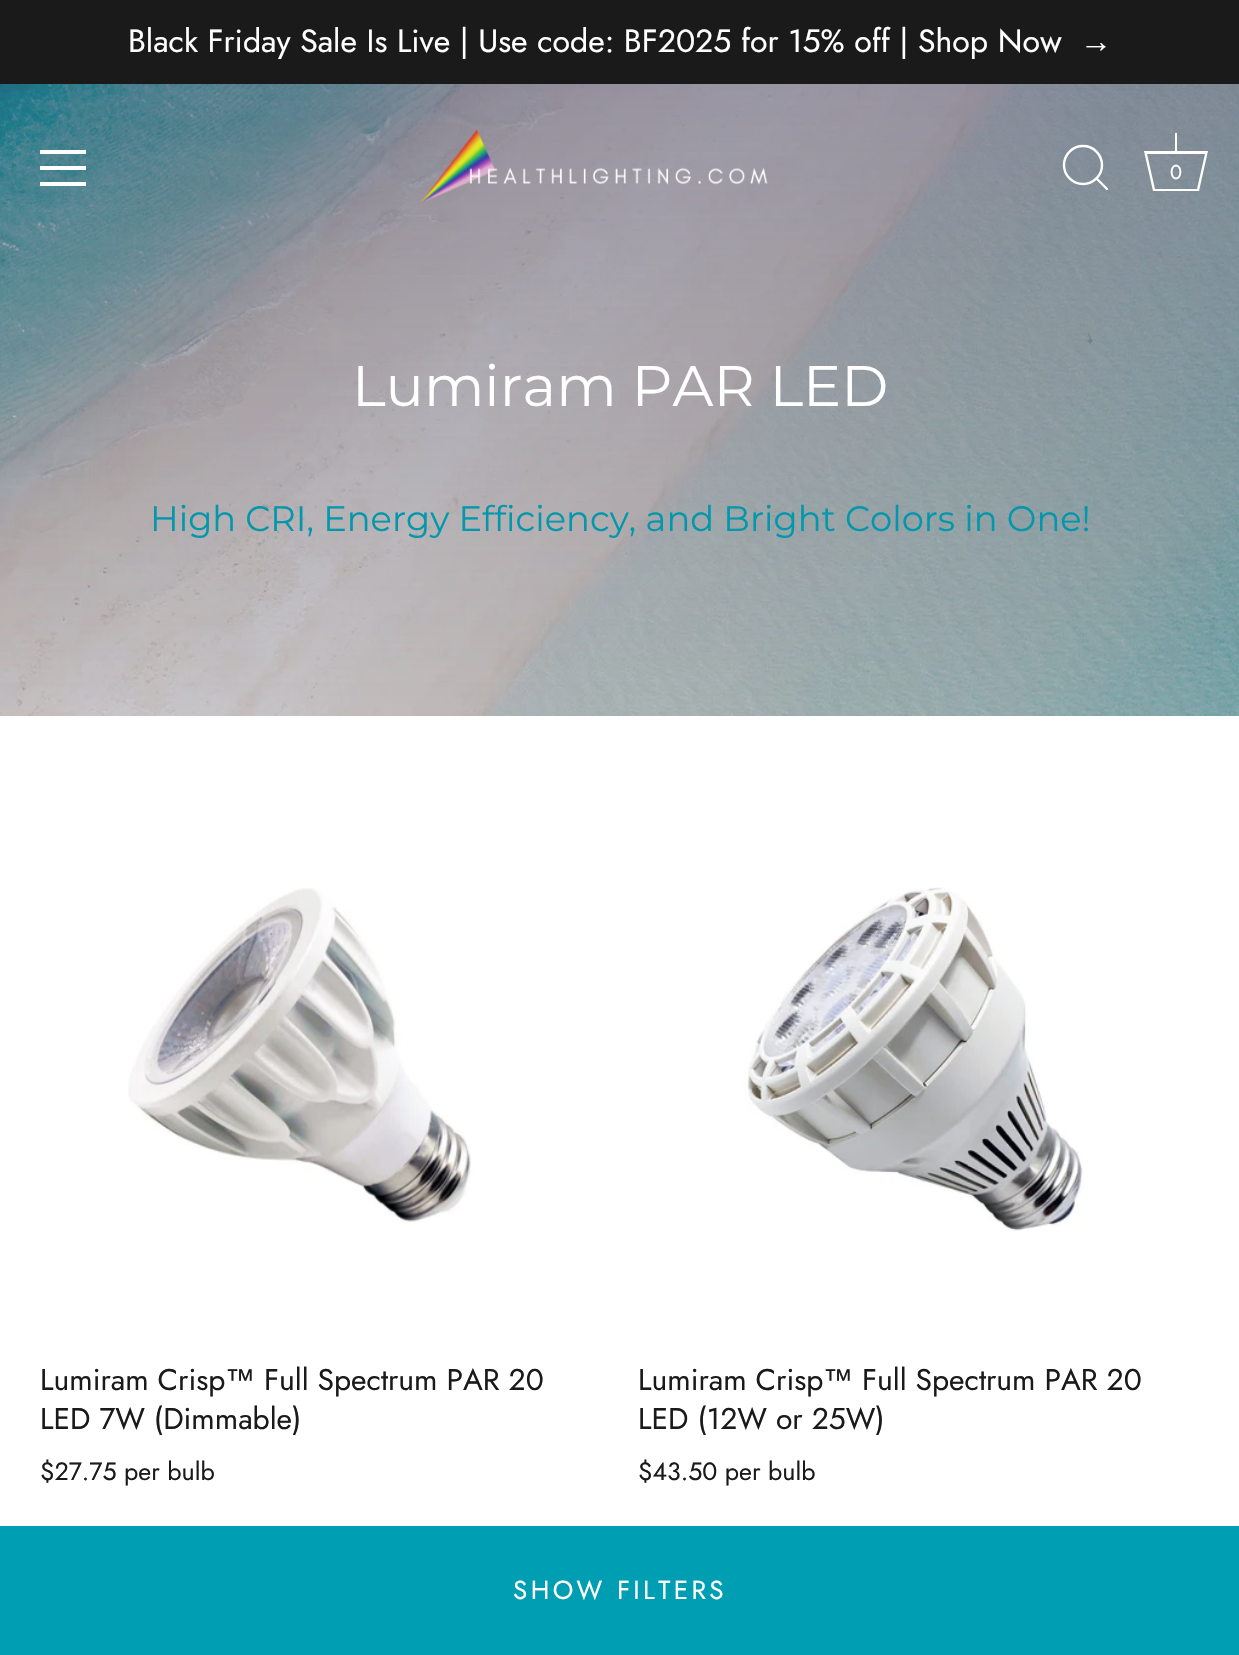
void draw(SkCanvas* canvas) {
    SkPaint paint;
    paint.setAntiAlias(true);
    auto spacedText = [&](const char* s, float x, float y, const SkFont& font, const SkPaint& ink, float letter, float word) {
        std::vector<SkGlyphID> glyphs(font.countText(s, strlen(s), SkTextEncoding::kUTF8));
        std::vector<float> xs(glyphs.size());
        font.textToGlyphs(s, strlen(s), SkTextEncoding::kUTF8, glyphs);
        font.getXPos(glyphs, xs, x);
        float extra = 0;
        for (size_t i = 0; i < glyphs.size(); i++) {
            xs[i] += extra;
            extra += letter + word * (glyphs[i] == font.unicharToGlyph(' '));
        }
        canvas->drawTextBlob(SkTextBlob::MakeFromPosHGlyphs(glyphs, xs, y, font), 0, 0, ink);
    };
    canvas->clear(0xFFFFFFFF);
    paint.setColor(0xFF1A1A1A);
    canvas->drawRect(SkRect::MakeXYWH(0, 0, 1239, 84), paint);
    SkFont font1(fontMgr->matchFamilyStyle("Jost", SkFontStyle::Normal()), 32);
    font1.setSubpixel(true);
    paint.setColor(0xFFFFFFFF);
    canvas->drawString("Black Friday Sale Is Live | Use code: BF2025 for 15% off | Shop Now", 128, 52, font1, paint);
    SkFont font2(fontMgr->matchFamilyStyle("Liberation Sans", SkFontStyle::Normal()), 32);
    font2.setSubpixel(true);
    canvas->drawString("→", 1080, 52, font2, paint);
    canvas->drawImageRect(SkImages::DeferredFromEncodedData(SkData::MakeFromFileName("img2.png")), SkRect::MakeXYWH(0, 84, 1239, 632), SkSamplingOptions());
    canvas->drawRect(SkRect::MakeXYWH(40, 150, 46, 4), paint);
    canvas->drawRect(SkRect::MakeXYWH(40, 166, 46, 4), paint);
    canvas->drawRect(SkRect::MakeXYWH(40, 182, 46, 4), paint);
    canvas->drawImageRect(SkImages::DeferredFromEncodedData(SkData::MakeFromFileName("img1.png")), SkRect::MakeXYWH(420, 129, 348, 75), SkSamplingOptions());
    paint.setStyle(SkPaint::kStroke_Style);
    paint.setStrokeWidth(2.4f);
    canvas->drawCircle(1083, 165, 19, paint);
    paint.setStrokeCap(SkPaint::kRound_Cap);
    paint.setStrokeJoin(SkPaint::kRound_Join);
    canvas->drawPath(SkPathBuilder().moveTo(1107, 189).lineTo(1096.5f, 178.5f).detach(), paint);
    paint.setStyle(SkPaint::kFill_Style);
    canvas->drawRect(SkRect::MakeXYWH(1175, 133, 2, 18), paint);
    canvas->drawPath(SkPathBuilder().moveTo(1205, 154).lineTo(1197, 189).lineTo(1155, 189).lineTo(1147, 154).lineTo(1205, 154).moveTo(1208, 151).lineTo(1144, 151).lineTo(1153, 191).lineTo(1199, 191).close().detach(), paint);
    SkFont font3(fontMgr->matchFamilyStyle("Jost", SkFontStyle::Normal()), 20);
    font3.setSubpixel(true);
    canvas->drawString("0", 1170, 179, font3, paint);
    SkFont font4(fontMgr->matchFamilyStyle("Montserrat", SkFontStyle::Normal()), 57);
    font4.setSubpixel(true);
    canvas->drawString("Lumiram PAR LED", 352, 406, font4, paint);
    SkFont font5(fontMgr->matchFamilyStyle("Montserrat", SkFontStyle::Normal()), 35.25f);
    font5.setSubpixel(true);
    paint.setColor(0xFF0297AB);
    canvas->drawString("High CRI, Energy Efficiency, and Bright Colors in One!", 150, 531, font5, paint);
    canvas->drawImageRect(SkImages::DeferredFromEncodedData(SkData::MakeFromFileName("img3.png")), SkRect::MakeXYWH(128, 888, 343, 338), SkSamplingOptions());
    SkFont font6(fontMgr->matchFamilyStyle("Jost", SkFontStyle::Normal()), 30);
    font6.setSubpixel(true);
    paint.setColor(0xFF1B1A1A);
    canvas->drawString("Lumiram Crisp", 40, 1390, font6, paint);
    SkFont font7(fontMgr->matchFamilyStyle("Liberation Sans", SkFontStyle::Normal()), 30);
    font7.setSubpixel(true);
    canvas->drawString("™", 225, 1390, font7, paint);
    canvas->drawString("Full Spectrum PAR 20", 264, 1390, font6, paint);
    canvas->drawString("LED 7W (Dimmable)", 40, 1429, font6, paint);
    SkFont font8(fontMgr->matchFamilyStyle("Jost", SkFontStyle::Normal()), 25);
    font8.setSubpixel(true);
    canvas->drawString("$27.75 per bulb", 40, 1480, font8, paint);
    canvas->drawImageRect(SkImages::DeferredFromEncodedData(SkData::MakeFromFileName("img4.png")), SkRect::MakeXYWH(745, 887, 339, 344), SkSamplingOptions());
    canvas->drawString("Lumiram Crisp", 638, 1390, font6, paint);
    canvas->drawString("™", 823, 1390, font7, paint);
    canvas->drawString("Full Spectrum PAR 20", 862, 1390, font6, paint);
    canvas->drawString("LED (12W or 25W)", 638, 1429, font6, paint);
    canvas->drawString("$43.50 per bulb", 638, 1480, font8, paint);
    paint.setColor(0xFF009EB3);
    canvas->drawRect(SkRect::MakeXYWH(0, 1526, 1239, 129), paint);
    SkFont font9(fontMgr->matchFamilyStyle("Jost", SkFontStyle::Normal()), 26);
    font9.setSubpixel(true);
    paint.setColor(0xFFFFFFFF);
    spacedText("SHOW FILTERS", 513, 1599, font9, paint, 3.4f, 0);
}
